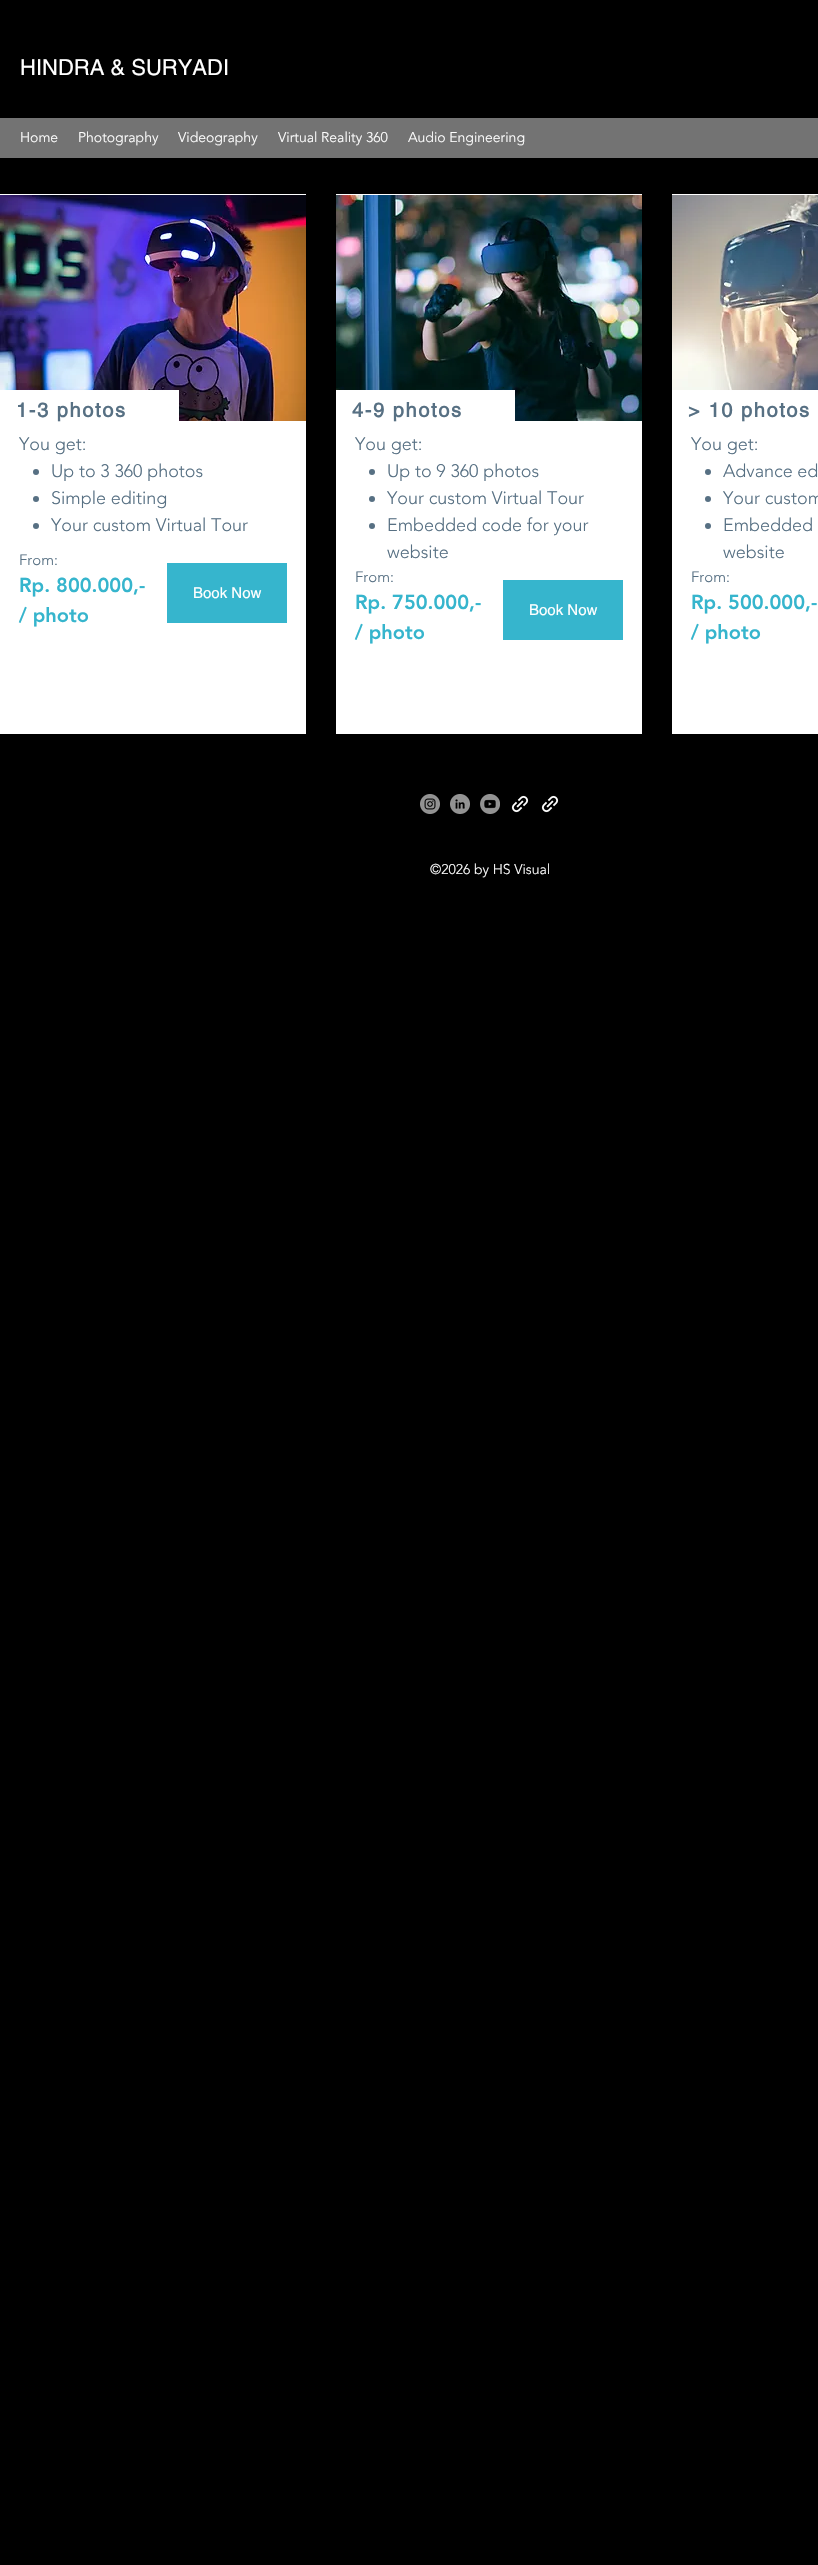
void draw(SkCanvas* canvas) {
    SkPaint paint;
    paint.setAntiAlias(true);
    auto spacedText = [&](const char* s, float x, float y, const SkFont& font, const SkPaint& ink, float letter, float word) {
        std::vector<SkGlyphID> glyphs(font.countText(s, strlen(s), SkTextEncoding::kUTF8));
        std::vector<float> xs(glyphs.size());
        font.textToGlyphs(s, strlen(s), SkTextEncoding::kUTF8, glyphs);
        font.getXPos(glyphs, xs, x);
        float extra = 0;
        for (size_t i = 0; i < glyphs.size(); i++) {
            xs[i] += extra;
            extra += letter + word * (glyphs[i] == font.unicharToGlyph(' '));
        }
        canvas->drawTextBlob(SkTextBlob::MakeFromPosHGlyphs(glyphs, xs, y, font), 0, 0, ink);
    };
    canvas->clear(0xFF000000);
    SkFont font1(fontMgr->matchFamilyStyle("helvetica", SkFontStyle::Normal()), 22);
    font1.setSubpixel(true);
    paint.setColor(0xFFFFFFFF);
    canvas->drawString("HINDRA & SURYADI", 20, 75, font1, paint);
    paint.setColor(0xFF737373);
    canvas->drawRect(SkRect::MakeXYWH(0, 118, 818, 40), paint);
    SkFont font2(fontMgr->matchFamilyStyle("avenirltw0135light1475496", SkFontStyle(300, SkFontStyle::kNormal_Width, SkFontStyle::kUpright_Slant)), 14);
    font2.setSubpixel(true);
    paint.setColor(0xFFFFFFFF);
    canvas->drawString("Home", 20, 142, font2, paint);
    canvas->drawString("Photography", 78, 142, font2, paint);
    canvas->drawString("Videography", 178, 142, font2, paint);
    canvas->drawString("Virtual Reality 360", 278, 142, font2, paint);
    canvas->drawString("Audio Engineering", 408, 142, font2, paint);
    canvas->drawRect(SkRect::MakeXYWH(0, 194, 306, 540), paint);
    canvas->drawImageRect(SkImages::DeferredFromEncodedData(SkData::MakeFromFileName("img1.png")), SkRect::MakeXYWH(0, 195, 306, 226), SkSamplingOptions());
    canvas->drawRect(SkRect::MakeXYWH(0, 390, 179, 31), paint);
    SkFont font3(fontMgr->matchFamilyStyle("helvetica", SkFontStyle::Bold()), 20);
    font3.setSubpixel(true);
    paint.setColor(0xFF577083);
    spacedText("1-3 photos", 16, 417, font3, paint, 1.6f, 0);
    SkFont font4(fontMgr->matchFamilyStyle("avenirltw0135light1475496", SkFontStyle(300, SkFontStyle::kNormal_Width, SkFontStyle::kUpright_Slant)), 18);
    font4.setSubpixel(true);
    canvas->drawString("You get:", 19, 450, font4, paint);
    canvas->drawCircle(36, 472, 3, paint);
    canvas->drawString("Up to 3 360 photos", 51, 477, font4, paint);
    canvas->drawCircle(36, 499, 3, paint);
    canvas->drawString("Simple editing", 51, 504, font4, paint);
    canvas->drawCircle(36, 526, 3, paint);
    canvas->drawString("Your custom Virtual Tour", 51, 531, font4, paint);
    SkFont font5(fontMgr->matchFamilyStyle("avenirltw0135light1475496", SkFontStyle(300, SkFontStyle::kNormal_Width, SkFontStyle::kUpright_Slant)), 15);
    font5.setSubpixel(true);
    canvas->drawString("From:", 19, 565, font5, paint);
    SkFont font6(fontMgr->matchFamilyStyle("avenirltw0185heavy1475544", SkFontStyle(900, SkFontStyle::kNormal_Width, SkFontStyle::kUpright_Slant)), 20);
    font6.setSubpixel(true);
    paint.setColor(0xFF36B5CD);
    canvas->drawString("Rp. 800.000,-", 19, 592, font6, paint);
    canvas->drawString("/ photo", 19, 622, font6, paint);
    canvas->drawRect(SkRect::MakeXYWH(167, 563, 120, 60), paint);
    SkFont font7(fontMgr->matchFamilyStyle("helvetica", SkFontStyle::Normal()), 15);
    font7.setSubpixel(true);
    paint.setColor(0xFFFFFFFF);
    canvas->drawString("Book Now", 193, 598, font7, paint);
    canvas->drawRect(SkRect::MakeXYWH(336, 194, 306, 540), paint);
    canvas->drawImageRect(SkImages::DeferredFromEncodedData(SkData::MakeFromFileName("img2.png")), SkRect::MakeXYWH(336, 195, 306, 226), SkSamplingOptions());
    canvas->drawRect(SkRect::MakeXYWH(336, 390, 179, 31), paint);
    paint.setColor(0xFF577083);
    spacedText("4-9 photos", 352, 417, font3, paint, 1.6f, 0);
    canvas->drawString("You get:", 355, 450, font4, paint);
    canvas->drawCircle(372, 472, 3, paint);
    canvas->drawString("Up to 9 360 photos", 387, 477, font4, paint);
    canvas->drawCircle(372, 499, 3, paint);
    canvas->drawString("Your custom Virtual Tour", 387, 504, font4, paint);
    canvas->drawCircle(372, 526, 3, paint);
    canvas->drawString("Embedded code for your", 387, 531, font4, paint);
    canvas->drawString("website", 387, 558, font4, paint);
    canvas->drawString("From:", 355, 582, font5, paint);
    paint.setColor(0xFF36B5CD);
    canvas->drawString("Rp. 750.000,-", 355, 609, font6, paint);
    canvas->drawString("/ photo", 355, 639, font6, paint);
    canvas->drawRect(SkRect::MakeXYWH(503, 580, 120, 60), paint);
    paint.setColor(0xFFFFFFFF);
    canvas->drawString("Book Now", 529, 615, font7, paint);
    canvas->drawRect(SkRect::MakeXYWH(672, 194, 146, 540), paint);
    canvas->drawImageRect(SkImages::DeferredFromEncodedData(SkData::MakeFromFileName("img3.png")), SkRect::MakeXYWH(672, 195, 146, 195), SkSamplingOptions());
    paint.setColor(0xFF577083);
    spacedText("> 10 photos", 688, 417, font3, paint, 1.6f, 0);
    canvas->drawString("You get:", 691, 450, font4, paint);
    canvas->drawCircle(708, 472, 3, paint);
    canvas->drawString("Advance ed", 723, 477, font4, paint);
    canvas->drawCircle(708, 499, 3, paint);
    canvas->drawString("Your custom", 723, 504, font4, paint);
    canvas->drawCircle(708, 526, 3, paint);
    canvas->drawString("Embedded", 723, 531, font4, paint);
    canvas->drawString("website", 723, 558, font4, paint);
    canvas->drawString("From:", 691, 582, font5, paint);
    paint.setColor(0xFF36B5CD);
    canvas->drawString("Rp. 500.000,-", 691, 609, font6, paint);
    canvas->drawString("/ photo", 691, 639, font6, paint);
    canvas->drawImageRect(SkImages::DeferredFromEncodedData(SkData::MakeFromFileName("img4.png")), SkRect::MakeXYWH(420, 794, 20, 20), SkSamplingOptions());
    canvas->drawImageRect(SkImages::DeferredFromEncodedData(SkData::MakeFromFileName("img5.png")), SkRect::MakeXYWH(450, 794, 20, 20), SkSamplingOptions());
    canvas->drawImageRect(SkImages::DeferredFromEncodedData(SkData::MakeFromFileName("img6.png")), SkRect::MakeXYWH(480, 794, 20, 20), SkSamplingOptions());
    canvas->drawImageRect(SkImages::DeferredFromEncodedData(SkData::MakeFromFileName("img7.png")), SkRect::MakeXYWH(511, 795, 18, 18), SkSamplingOptions());
    canvas->drawImageRect(SkImages::DeferredFromEncodedData(SkData::MakeFromFileName("img7.png")), SkRect::MakeXYWH(541, 795, 18, 18), SkSamplingOptions());
    paint.setColor(0xFFFFFFFF);
    canvas->drawString("©2026 by HS Visual", 430, 874, font2, paint);
}
